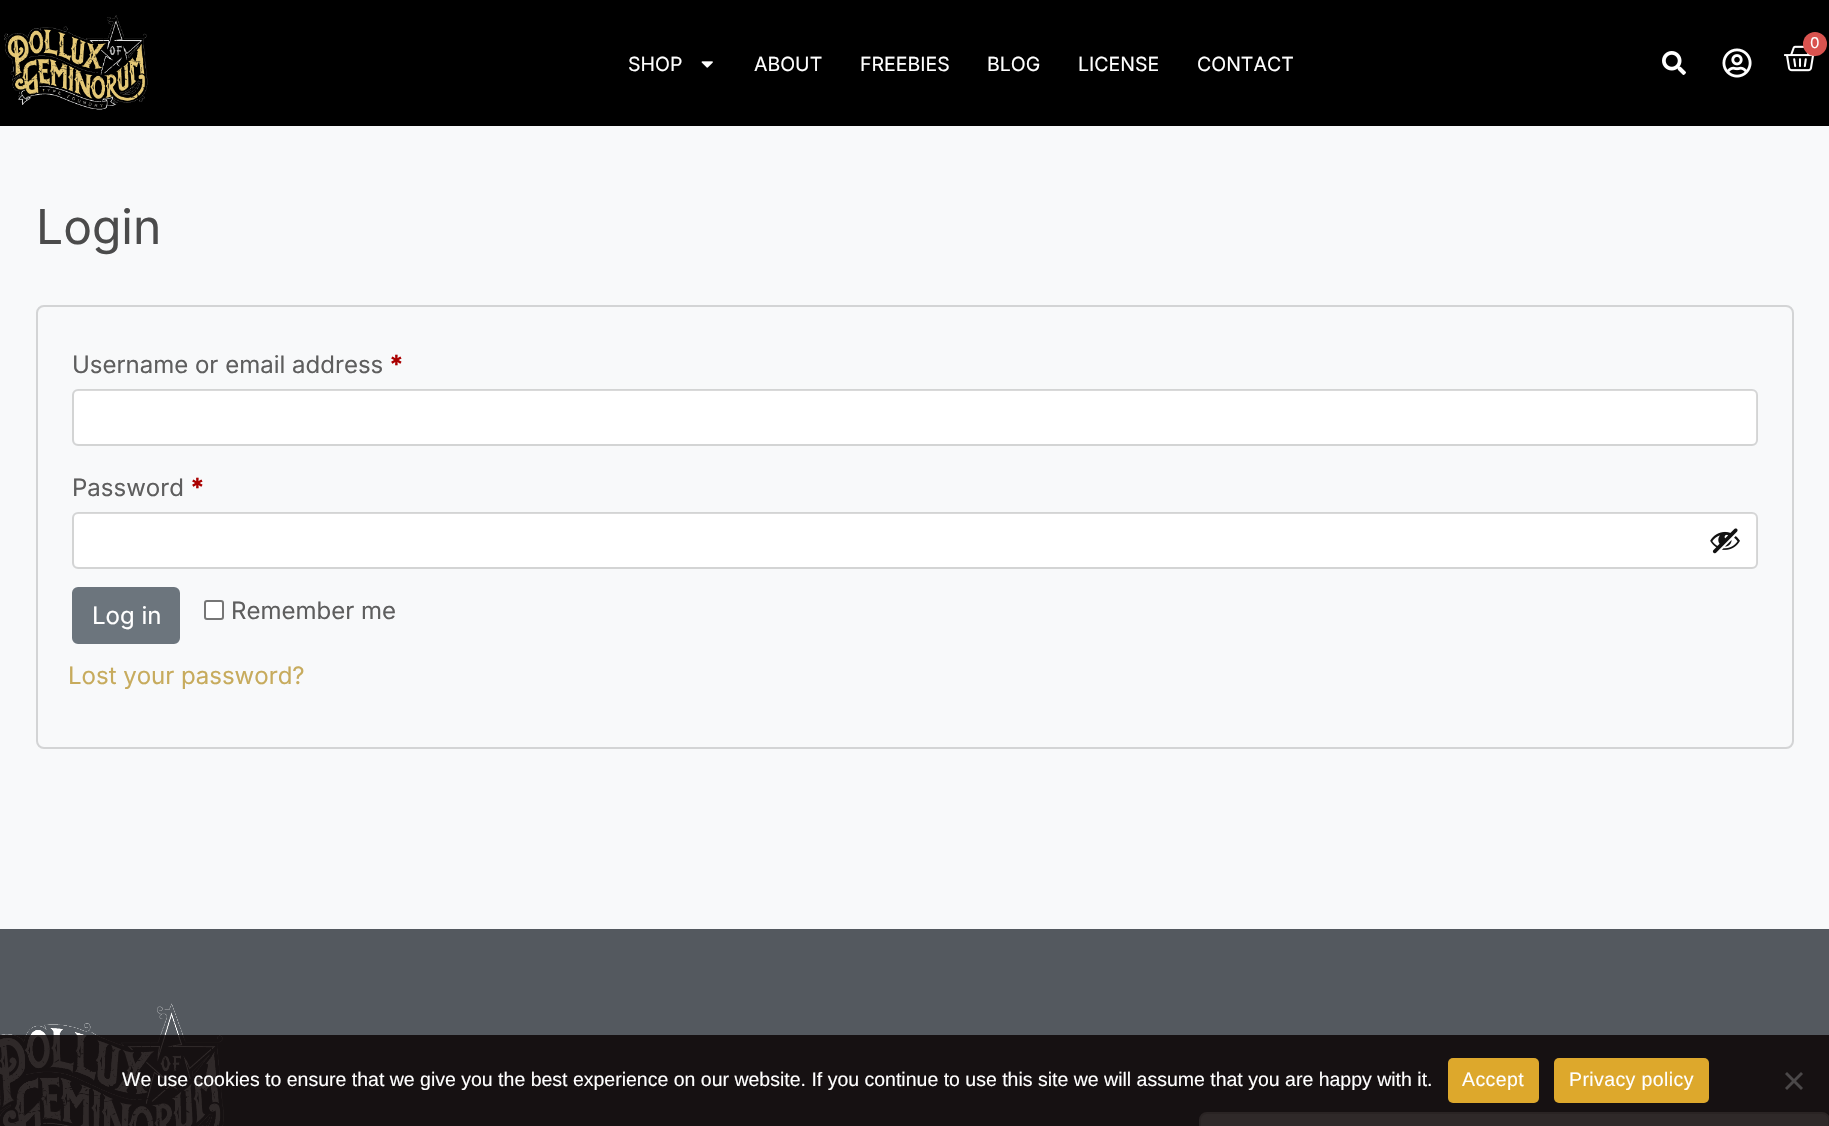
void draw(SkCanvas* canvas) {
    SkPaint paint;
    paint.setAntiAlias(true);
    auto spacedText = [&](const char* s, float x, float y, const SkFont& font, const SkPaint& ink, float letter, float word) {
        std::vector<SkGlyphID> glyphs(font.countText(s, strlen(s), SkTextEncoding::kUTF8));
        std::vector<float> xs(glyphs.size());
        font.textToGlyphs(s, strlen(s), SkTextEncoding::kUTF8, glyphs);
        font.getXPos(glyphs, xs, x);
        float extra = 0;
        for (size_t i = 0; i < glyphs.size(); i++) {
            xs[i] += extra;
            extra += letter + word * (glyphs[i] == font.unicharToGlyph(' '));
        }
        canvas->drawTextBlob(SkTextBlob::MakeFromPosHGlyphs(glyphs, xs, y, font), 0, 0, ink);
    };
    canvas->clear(0xFFF8F9FA);
    paint.setColor(0xFF000000);
    canvas->drawRect(SkRect::MakeXYWH(0, 0, 1829, 126), paint);
    canvas->drawImageRect(SkImages::DeferredFromEncodedData(SkData::MakeFromFileName("img1.png")), SkRect::MakeXYWH(4, 15, 144, 95), SkSamplingOptions());
    canvas->drawImageRect(SkImages::DeferredFromEncodedData(SkData::MakeFromFileName("img2.png")), SkRect::MakeXYWH(1784, 45, 33, 27), SkSamplingOptions());
    paint.setColor(0xFFD9534F);
    canvas->drawCircle(1815, 44, 12, paint);
    SkFont font1(fontMgr->matchFamilyStyle("Inter", SkFontStyle::Normal()), 15);
    font1.setSubpixel(true);
    paint.setColor(0xFFFFFFFF);
    canvas->drawString("0", 1810, 48, font1, paint);
    SkFont font2(fontMgr->matchFamilyStyle("Inter", SkFontStyle::Normal()), 19.5f);
    font2.setSubpixel(true);
    canvas->drawString("SHOP", 628, 71, font2, paint);
    canvas->drawImageRect(SkImages::DeferredFromEncodedData(SkData::MakeFromFileName("img3.png")), SkRect::MakeXYWH(701, 61, 12, 7), SkSamplingOptions());
    canvas->drawString("ABOUT", 754, 71, font2, paint);
    canvas->drawString("FREEBIES", 860, 71, font2, paint);
    canvas->drawString("BLOG", 987, 71, font2, paint);
    canvas->drawString("LICENSE", 1078, 71, font2, paint);
    canvas->drawString("CONTACT", 1197, 71, font2, paint);
    canvas->drawImageRect(SkImages::DeferredFromEncodedData(SkData::MakeFromFileName("img4.png")), SkRect::MakeXYWH(1662, 51, 24, 24), SkSamplingOptions());
    canvas->drawImageRect(SkImages::DeferredFromEncodedData(SkData::MakeFromFileName("img5.png")), SkRect::MakeXYWH(1722, 48, 30, 30), SkSamplingOptions());
    SkFont font3(fontMgr->matchFamilyStyle("Inter", SkFontStyle::Normal()), 48);
    font3.setSubpixel(true);
    paint.setColor(0xFF4B4B4B);
    canvas->drawString("Login", 36, 244, font3, paint);
    paint.setStyle(SkPaint::kStroke_Style);
    paint.setStrokeWidth(2);
    paint.setColor(0xFFD3D4D5);
    canvas->drawRoundRect(SkRect::MakeXYWH(37, 306, 1756, 442), 7, 7, paint);
    SkFont font4(fontMgr->matchFamilyStyle("Inter", SkFontStyle::Normal()), 24);
    font4.setSubpixel(true);
    paint.setStyle(SkPaint::kFill_Style);
    paint.setColor(0xFF5E5E5E);
    canvas->drawString("Username or email address", 72, 373, font4, paint);
    SkFont font5(fontMgr->matchFamilyStyle("Inter", SkFontStyle::Bold()), 24);
    font5.setSubpixel(true);
    paint.setColor(0xFFAA0000);
    canvas->drawString("*", 390, 373, font5, paint);
    paint.setColor(0xFFFFFFFF);
    canvas->drawRoundRect(SkRect::MakeXYWH(74, 390, 1683, 54), 5, 5, paint);
    paint.setStyle(SkPaint::kStroke_Style);
    paint.setColor(0x26000000);
    canvas->drawRoundRect(SkRect::MakeXYWH(73, 390, 1684, 55), 5, 5, paint);
    paint.setStyle(SkPaint::kFill_Style);
    paint.setColor(0xFF5E5E5E);
    canvas->drawString("Password", 72, 496, font4, paint);
    paint.setColor(0xFFAA0000);
    canvas->drawString("*", 191, 496, font5, paint);
    paint.setColor(0xFFFFFFFF);
    canvas->drawRoundRect(SkRect::MakeXYWH(74, 513, 1683, 54), 5, 5, paint);
    paint.setStyle(SkPaint::kStroke_Style);
    paint.setColor(0x26000000);
    canvas->drawRoundRect(SkRect::MakeXYWH(73, 513, 1684, 55), 5, 5, paint);
    canvas->drawImageRect(SkImages::DeferredFromEncodedData(SkData::MakeFromFileName("img6.png")), SkRect::MakeXYWH(1710, 528, 30, 26), SkSamplingOptions());
    paint.setStyle(SkPaint::kFill_Style);
    paint.setColor(0xFF6C757D);
    canvas->drawRoundRect(SkRect::MakeXYWH(73, 588, 106, 55), 5, 5, paint);
    paint.setStyle(SkPaint::kStroke_Style);
    canvas->drawRoundRect(SkRect::MakeXYWH(73, 588, 106, 55), 5, 5, paint);
    paint.setStyle(SkPaint::kFill_Style);
    paint.setColor(0xFFFFFFFF);
    canvas->drawString("Log in", 92, 624, font4, paint);
    canvas->drawRoundRect(SkRect::MakeXYWH(205, 601, 18, 18), 2, 2, paint);
    paint.setStyle(SkPaint::kStroke_Style);
    paint.setColor(0xFF767676);
    canvas->drawRoundRect(SkRect::MakeXYWH(205, 601, 18, 18), 2, 2, paint);
    paint.setStyle(SkPaint::kFill_Style);
    paint.setColor(0xFF5E5E5E);
    canvas->drawString("Remember me", 231, 619, font4, paint);
    paint.setColor(0xFFC7AB5D);
    canvas->drawString("Lost your password?", 68, 684, font4, paint);
    paint.setColor(0xFF54595F);
    canvas->drawRect(SkRect::MakeXYWH(0, 929, 1829, 197), paint);
    canvas->drawImageRect(SkImages::DeferredFromEncodedData(SkData::MakeFromFileName("img7.png")), SkRect::MakeXYWH(0, 1003, 224, 123), SkSamplingOptions());
    paint.setColor(0xFFFFFFFF);
    canvas->drawRoundRect(SkRect::MakeXYWH(1200, 1113, 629, 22), 7, 7, paint);
    paint.setStyle(SkPaint::kStroke_Style);
    paint.setColor(0xFFD8D8D8);
    canvas->drawRoundRect(SkRect::MakeXYWH(1200, 1113, 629, 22), 7, 7, paint);
    paint.setStyle(SkPaint::kFill_Style);
    paint.setColor(0xD90A0404);
    canvas->drawRect(SkRect::MakeXYWH(0, 1035, 1829, 91), paint);
    SkFont font6(fontMgr->matchFamilyStyle("Liberation Sans", SkFontStyle::Normal()), 19.5f);
    font6.setSubpixel(true);
    paint.setColor(0xFFFFFFFF);
    canvas->drawString("We use cookies to ensure that we give you the best experience on our website. If you continue to use this site we will assume that you are happy with it.", 122, 1086, font6, paint);
    paint.setColor(0xFFDDA82C);
    canvas->drawRoundRect(SkRect::MakeXYWH(1448, 1058, 91, 45), 5, 5, paint);
    paint.setColor(0xFFFFFFFF);
    spacedText("Accept", 1462, 1086, font6, paint, 0.4f, 0);
    paint.setColor(0xFFDDA82C);
    canvas->drawRoundRect(SkRect::MakeXYWH(1554, 1058, 155, 45), 5, 5, paint);
    paint.setColor(0xFFFFFFFF);
    spacedText("Privacy policy", 1569, 1086, font6, paint, 0.4f, 0);
    paint.setColor(0xFF4B4849);
    canvas->drawPath(SkPathBuilder().moveTo(1801, 1072).lineTo(1803, 1074).lineTo(1787, 1090).lineTo(1785, 1088).close().detach(), paint);
    canvas->drawPath(SkPathBuilder().moveTo(1785, 1074).lineTo(1787, 1072).lineTo(1803, 1088).lineTo(1801, 1090).close().detach(), paint);
}
